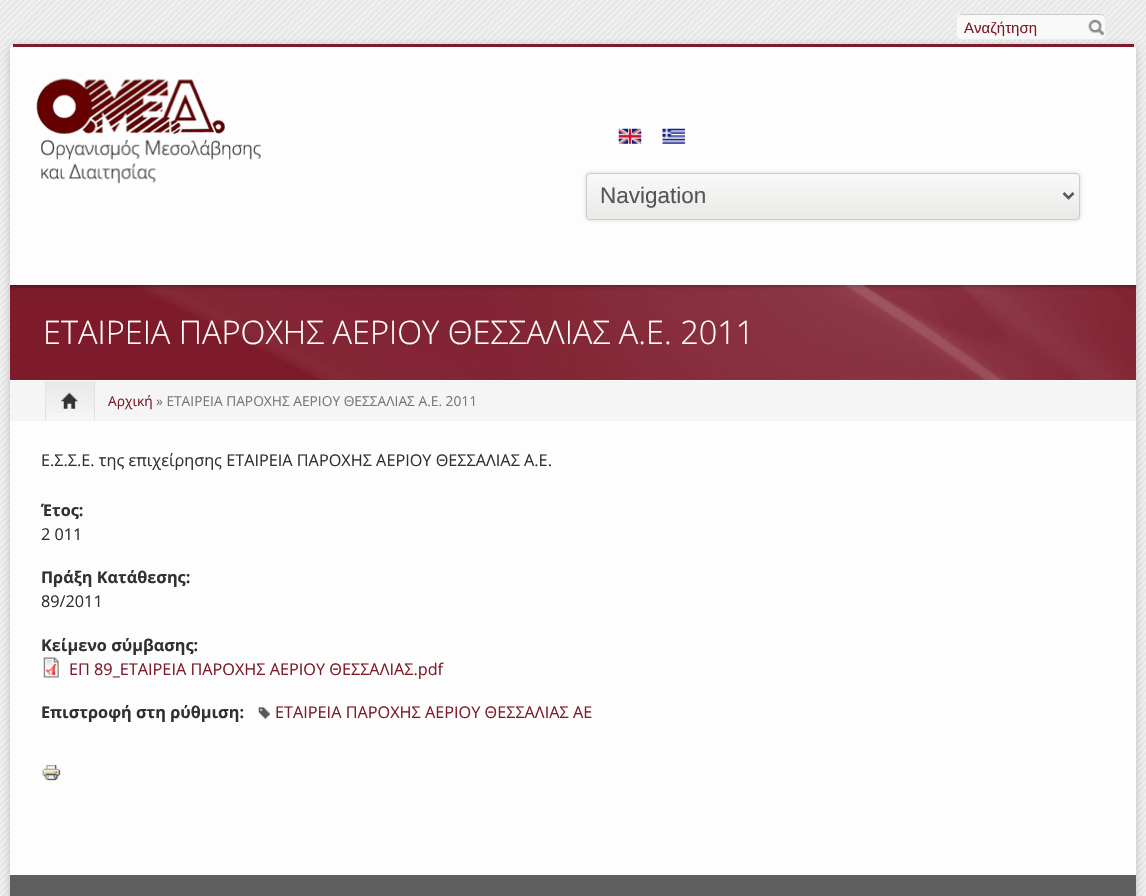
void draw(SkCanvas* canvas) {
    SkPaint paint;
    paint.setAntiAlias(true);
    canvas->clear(0xFFFFFFFF);
    canvas->drawImageRect(SkImages::DeferredFromEncodedData(SkData::MakeFromFileName("img1.png")), SkRect::MakeXYWH(0, 0, 1146, 896), SkSamplingOptions());
    paint.setColor(0x40323232);
    paint.setMaskFilter(SkMaskFilter::MakeBlur(kNormal_SkBlurStyle, 4));
    canvas->drawRoundRect(SkRect::MakeXYWH(10, 46, 1126, 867), 5, 5, paint);
    paint.setMaskFilter(nullptr);
    paint.setColor(0xFFF9F9F9);
    canvas->drawRoundRect(SkRect::MakeXYWH(956, 13, 150, 27), 5, 5, paint);
    paint.setColor(0xFFCCCCCC);
    canvas->drawPath(SkPathBuilder().moveTo(961, 15).lineTo(1101, 15).cubicTo(1103, 15, 1105, 17, 1105, 19).lineTo(1105, 18).cubicTo(1105, 16, 1103, 14, 1101, 14).lineTo(962, 14).cubicTo(960, 14, 958, 16, 958, 18).lineTo(958, 19).cubicTo(958, 17, 959, 15, 961, 15).close().detach(), paint);
    paint.setStyle(SkPaint::kStroke_Style);
    paint.setStrokeWidth(1);
    paint.setColor(0xFFECECEC);
    canvas->drawRoundRect(SkRect::MakeXYWH(956.5f, 13.5f, 149, 26), 4.5f, 4.5f, paint);
    canvas->save();
    canvas->clipRect(SkRect::MakeXYWH(964, 19, 135, 17));
    SkFont font1(fontMgr->matchFamilyStyle("Liberation Sans", SkFontStyle::Normal()), 15);
    font1.setSubpixel(true);
    paint.setStyle(SkPaint::kFill_Style);
    paint.setColor(0xFF7D1B2A);
    canvas->drawString("Αναζήτηση", 964, 33, font1, paint);
    canvas->restore();
    canvas->drawImageRect(SkImages::DeferredFromEncodedData(SkData::MakeFromFileName("img2.png")), SkRect::MakeXYWH(1088, 19, 16, 17), SkSamplingOptions());
    paint.setColor(0xFFFDFDFD);
    canvas->drawRoundRect(SkRect::MakeXYWH(10, 44, 1126, 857), 5, 5, paint);
    paint.setColor(0xFF7D1B2A);
    canvas->drawRect(SkRect::MakeXYWH(13, 44, 1121, 3), paint);
    canvas->drawImageRect(SkImages::DeferredFromEncodedData(SkData::MakeFromFileName("img3.png")), SkRect::MakeXYWH(36, 78, 225, 106), SkSamplingOptions());
    canvas->drawImageRect(SkImages::DeferredFromEncodedData(SkData::MakeFromFileName("img4.png")), SkRect::MakeXYWH(618, 128, 24, 16), SkSamplingOptions());
    canvas->drawImageRect(SkImages::DeferredFromEncodedData(SkData::MakeFromFileName("img5.png")), SkRect::MakeXYWH(662, 128, 23, 16), SkSamplingOptions());
    paint.setColor(0x33323232);
    paint.setMaskFilter(SkMaskFilter::MakeBlur(kNormal_SkBlurStyle, 2));
    canvas->drawRoundRect(SkRect::MakeXYWH(586, 173, 494, 47), 4, 4, paint);
    paint.setMaskFilter(nullptr);
    canvas->save();
    canvas->clipPath(SkPathBuilder().moveTo(590, 173).lineTo(1076, 173).cubicTo(1078, 173, 1080, 175, 1080, 177).lineTo(1080, 216).cubicTo(1080, 218, 1078, 220, 1076, 220).lineTo(590, 220).cubicTo(588, 220, 586, 218, 586, 216).lineTo(586, 177).cubicTo(586, 175, 588, 173, 590, 173).close().detach(), true);
    {
        const SkColor colors[] = {0xFFF9F9F9, 0xFFEAE9E6};
        const float stops[] = {0, 1};
        const SkPoint ends[] = {{833, 174}, {833, 219}};
        paint.setShader(SkGradientShader::MakeLinear(ends, colors, stops, 2, SkTileMode::kClamp));
        paint.setAlpha(255);
    }
    canvas->drawRect(SkRect::MakeXYWH(586, 174, 494, 45), paint);
    canvas->restore();
    paint.setStyle(SkPaint::kStroke_Style);
    paint.setShader(nullptr);
    paint.setColor(0xFFCCCCCC);
    canvas->drawRoundRect(SkRect::MakeXYWH(586.5f, 173.5f, 493, 46), 3.5f, 3.5f, paint);
    paint.setStrokeWidth(2.5f);
    paint.setColor(0xFF555555);
    canvas->drawPath(SkPathBuilder().moveTo(1063.5f, 193).lineTo(1068.5f, 198).lineTo(1073.5f, 193).detach(), paint);
    SkFont font2(fontMgr->matchFamilyStyle("Liberation Sans", SkFontStyle::Normal()), 22.5f);
    font2.setSubpixel(true);
    paint.setStyle(SkPaint::kFill_Style);
    canvas->drawString("Navigation", 600, 203, font2, paint);
    paint.setColor(0xFF7D1B2A);
    canvas->drawRect(SkRect::MakeXYWH(10, 285, 1126, 95), paint);
    canvas->drawImageRect(SkImages::DeferredFromEncodedData(SkData::MakeFromFileName("img6.png")), SkRect::MakeXYWH(10, 285, 1127, 95), SkSamplingOptions());
    SkFont font3(fontMgr->matchFamilyStyle("Open Sans", SkFontStyle(300, SkFontStyle::kNormal_Width, SkFontStyle::kUpright_Slant)), 32.5f);
    font3.setSubpixel(true);
    paint.setColor(0xFFFFFFFF);
    canvas->drawString("ΕΤΑΙΡΕΙΑ ΠΑΡΟΧΗΣ ΑΕΡΙΟΥ ΘΕΣΣΑΛΙΑΣ Α.Ε. 2011", 43, 344, font3, paint);
    paint.setColor(0xFFF5F5F5);
    canvas->drawRect(SkRect::MakeXYWH(10, 381, 1126, 40), paint);
    {
        const SkColor colors[] = {0xFFE9E9E9, 0xFFF5F5F5};
        const float stops[] = {0, 1};
        const SkPoint ends[] = {{70, 381}, {70, 421}};
        paint.setShader(SkGradientShader::MakeLinear(ends, colors, stops, 2, SkTileMode::kClamp));
        paint.setAlpha(255);
    }
    canvas->drawRect(SkRect::MakeXYWH(46, 381, 48, 32), paint);
    paint.setShader(nullptr);
    paint.setColor(0xFFE2E2E2);
    canvas->drawRect(SkRect::MakeXYWH(94, 381, 1, 40), paint);
    canvas->drawRect(SkRect::MakeXYWH(45, 381, 1, 40), paint);
    canvas->drawImageRect(SkImages::DeferredFromEncodedData(SkData::MakeFromFileName("img7.png")), SkRect::MakeXYWH(61, 392, 17, 17), SkSamplingOptions());
    SkFont font4(fontMgr->matchFamilyStyle("Open Sans", SkFontStyle::Normal()), 13.75f);
    font4.setSubpixel(true);
    paint.setColor(0xFF7D1B2A);
    canvas->drawString("Αρχική", 108, 406, font4, paint);
    paint.setColor(0xFF777777);
    canvas->drawString("» ΕΤΑΙΡΕΙΑ ΠΑΡΟΧΗΣ ΑΕΡΙΟΥ ΘΕΣΣΑΛΙΑΣ Α.Ε. 2011", 156, 406, font4, paint);
    SkFont font5(fontMgr->matchFamilyStyle("Open Sans", SkFontStyle::Normal()), 16.25f);
    font5.setSubpixel(true);
    paint.setColor(0xFF313131);
    canvas->drawString("Ε.Σ.Σ.Ε. της επιχείρησης ΕΤΑΙΡΕΙΑ ΠΑΡΟΧΗΣ ΑΕΡΙΟΥ ΘΕΣΣΑΛΙΑΣ Α.Ε.", 41, 466, font5, paint);
    SkFont font6(fontMgr->matchFamilyStyle("Open Sans", SkFontStyle::Bold()), 16.25f);
    font6.setSubpixel(true);
    canvas->drawString("Έτος:", 41, 516, font6, paint);
    canvas->drawString("2 011", 41, 540, font5, paint);
    canvas->drawString("Πράξη Κατάθεσης:", 41, 583, font6, paint);
    canvas->drawString("89/2011", 41, 607, font5, paint);
    canvas->drawString("Κείμενο σύμβασης:", 41, 651, font6, paint);
    canvas->drawImageRect(SkImages::DeferredFromEncodedData(SkData::MakeFromFileName("img8.png")), SkRect::MakeXYWH(43, 657, 16, 21), SkSamplingOptions());
    paint.setColor(0xFF7D1B2A);
    canvas->drawString("ΕΠ 89_ΕΤΑΙΡΕΙΑ ΠΑΡΟΧΗΣ ΑΕΡΙΟΥ ΘΕΣΣΑΛΙΑΣ.pdf", 69, 675, font5, paint);
    paint.setColor(0xFF313131);
    canvas->drawString("Επιστροφή στη ρύθμιση:", 41, 718, font6, paint);
    canvas->drawImageRect(SkImages::DeferredFromEncodedData(SkData::MakeFromFileName("img9.png")), SkRect::MakeXYWH(258, 707, 12, 12), SkSamplingOptions());
    paint.setColor(0xFF7D1B2A);
    canvas->drawString("ΕΤΑΙΡΕΙΑ ΠΑΡΟΧΗΣ ΑΕΡΙΟΥ ΘΕΣΣΑΛΙΑΣ ΑΕ", 275, 718, font5, paint);
    canvas->drawImageRect(SkImages::DeferredFromEncodedData(SkData::MakeFromFileName("img10.png")), SkRect::MakeXYWH(42, 764, 19, 17), SkSamplingOptions());
    paint.setColor(0xFF5E5E5E);
    canvas->drawRect(SkRect::MakeXYWH(10, 875, 1126, 21), paint);
}
